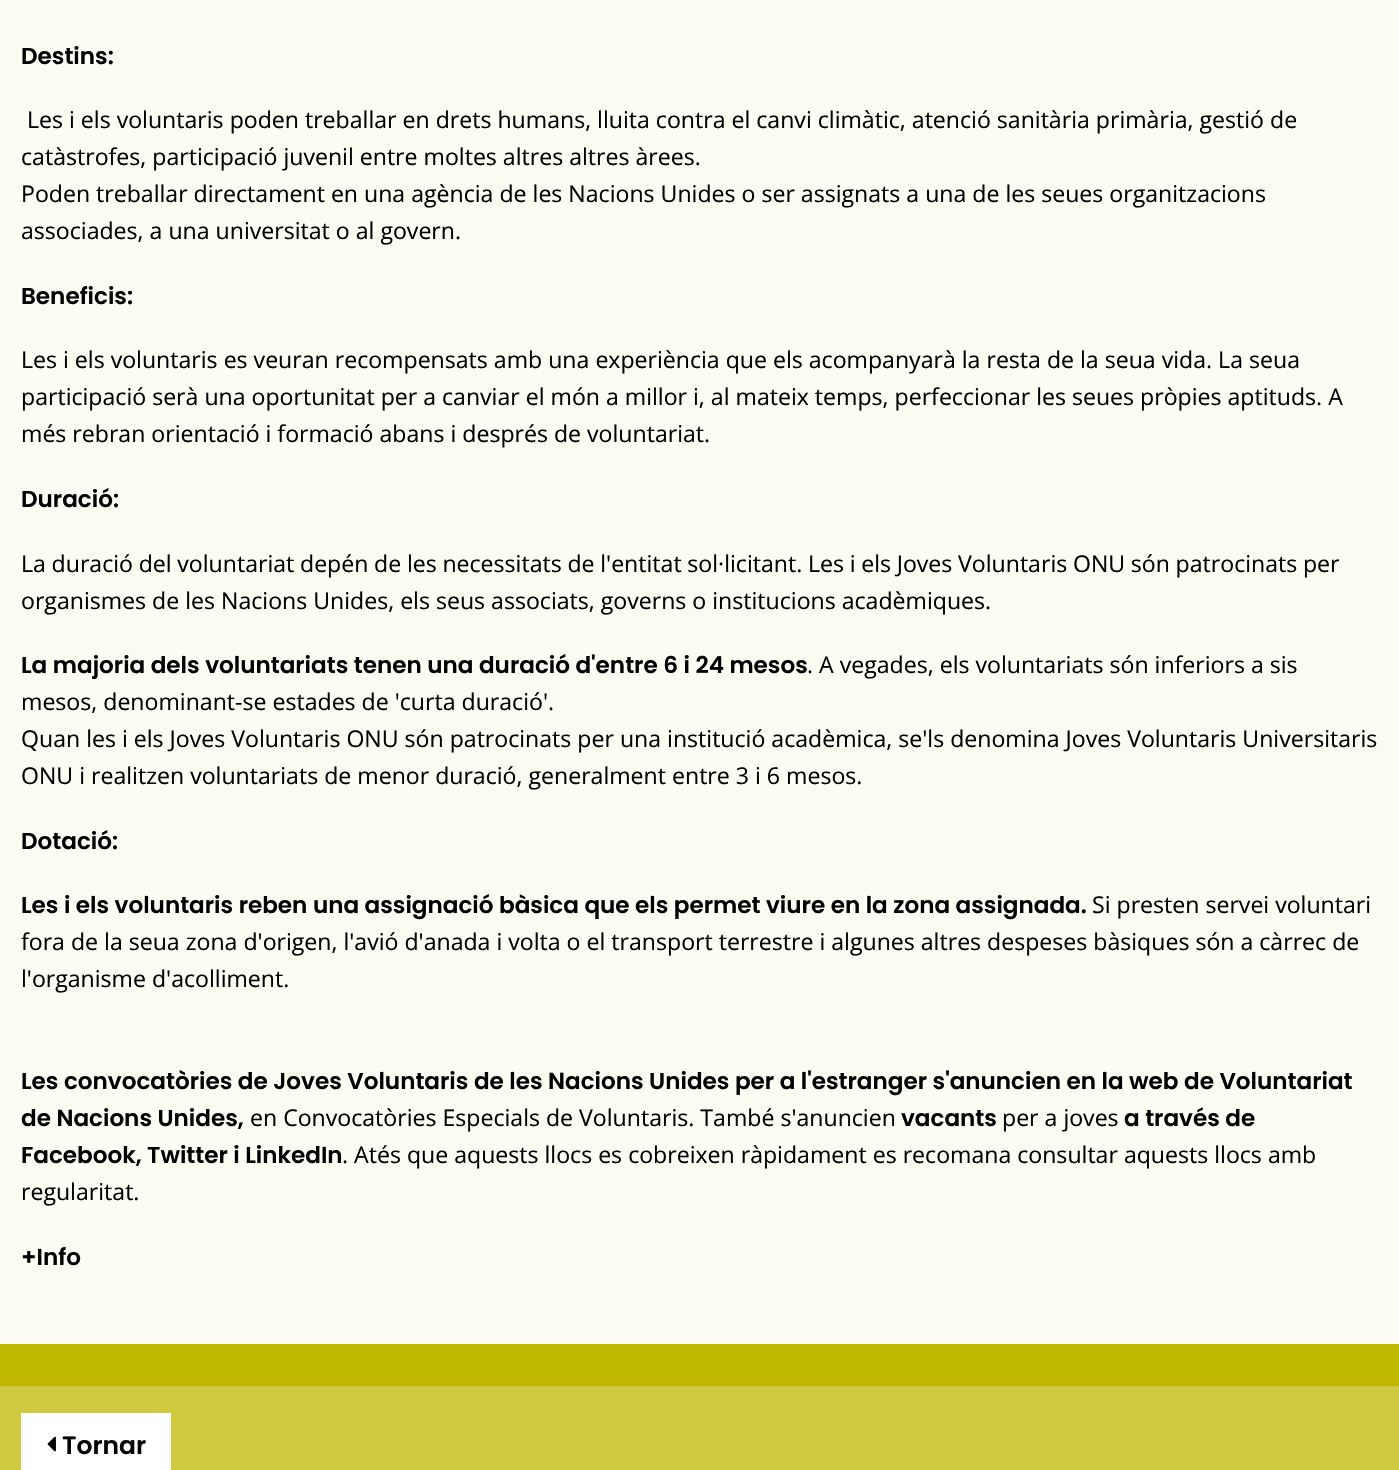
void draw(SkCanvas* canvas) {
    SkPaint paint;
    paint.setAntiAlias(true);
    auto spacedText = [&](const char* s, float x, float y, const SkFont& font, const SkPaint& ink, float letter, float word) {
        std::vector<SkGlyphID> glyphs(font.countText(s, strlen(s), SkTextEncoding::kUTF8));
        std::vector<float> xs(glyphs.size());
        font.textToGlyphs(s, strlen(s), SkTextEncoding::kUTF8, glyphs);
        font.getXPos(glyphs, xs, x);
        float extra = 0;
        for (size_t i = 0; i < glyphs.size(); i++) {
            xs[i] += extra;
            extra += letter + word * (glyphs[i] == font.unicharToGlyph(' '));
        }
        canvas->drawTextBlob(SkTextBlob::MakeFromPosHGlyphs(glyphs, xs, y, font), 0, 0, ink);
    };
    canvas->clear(0xFFC1B900);
    paint.setColor(0xFFFCFCF2);
    canvas->drawRect(SkRect::MakeXYWH(0, 0, 1399, 1344), paint);
    SkFont font1(fontMgr->matchFamilyStyle("Poppins", SkFontStyle(600, SkFontStyle::kNormal_Width, SkFontStyle::kUpright_Slant)), 23.1f);
    font1.setSubpixel(true);
    paint.setColor(0xFF000000);
    canvas->drawString("Destins:", 21, 64, font1, paint);
    SkFont font2(fontMgr->matchFamilyStyle("Open Sans", SkFontStyle::Normal()), 23.1f);
    font2.setSubpixel(true);
    canvas->drawString("Les i els voluntaris poden treballar en drets humans, lluita contra el canvi climàtic, atenció sanitària primària, gestió de", 27, 128, font2, paint);
    canvas->drawString("catàstrofes, participació juvenil entre moltes altres altres àrees.", 21, 165, font2, paint);
    canvas->drawString("Poden treballar directament en una agència de les Nacions Unides o ser assignats a una de les seues organitzacions", 21, 202, font2, paint);
    canvas->drawString("associades, a una universitat o al govern.", 21, 239, font2, paint);
    canvas->drawString("Beneficis:", 21, 304, font1, paint);
    canvas->drawString("Les i els voluntaris es veuran recompensats amb una experiència que els acompanyarà la resta de la seua vida. La seua", 21, 368, font2, paint);
    canvas->drawString("participació serà una oportunitat per a canviar el món a millor i, al mateix temps, perfeccionar les seues pròpies aptituds. A", 21, 405, font2, paint);
    canvas->drawString("més rebran orientació i formació abans i després de voluntariat.", 21, 442, font2, paint);
    canvas->drawString("Duració:", 21, 507, font1, paint);
    spacedText("La duració del voluntariat depén de les necessitats de l'entitat sol·licitant. Les i els Joves Voluntaris ONU són patrocinats per", 21, 572, font2, paint, 0, -0.3f);
    canvas->drawString("organismes de les Nacions Unides, els seus associats, governs o institucions acadèmiques.", 21, 609, font2, paint);
    canvas->drawString("La majoria dels voluntariats tenen una duració d'entre 6 i 24 mesos", 21, 673, font1, paint);
    canvas->drawString(". A vegades, els voluntariats són inferiors a sis", 807, 673, font2, paint);
    canvas->drawString("mesos, denominant-se estades de 'curta duració'.", 21, 710, font2, paint);
    canvas->drawString("Quan les i els Joves Voluntaris ONU són patrocinats per una institució acadèmica, se'ls denomina Joves Voluntaris Universitaris", 21, 747, font2, paint);
    canvas->drawString("ONU i realitzen voluntariats de menor duració, generalment entre 3 i 6 mesos.", 21, 784, font2, paint);
    canvas->drawString("Dotació:", 21, 849, font1, paint);
    canvas->drawString("Les i els voluntaris reben una assignació bàsica que els permet viure en la zona assignada.", 21, 913, font1, paint);
    canvas->drawString("Si presten servei voluntari", 1092, 913, font2, paint);
    canvas->drawString("fora de la seua zona d'origen, l'avió d'anada i volta o el transport terrestre i algunes altres despeses bàsiques són a càrrec de", 21, 950, font2, paint);
    canvas->drawString("l'organisme d'acolliment.", 21, 987, font2, paint);
    canvas->drawString("Les convocatòries de Joves Voluntaris de les Nacions Unides per a l'estranger s'anuncien en la web de Voluntariat", 21, 1089, font1, paint);
    canvas->drawString("de Nacions Unides,", 21, 1126, font1, paint);
    canvas->drawString("en Convocatòries Especials de Voluntaris. També s'anuncien", 250, 1126, font2, paint);
    canvas->drawString("vacants", 901, 1126, font1, paint);
    canvas->drawString("per a joves", 1002, 1126, font2, paint);
    canvas->drawString("a través de", 1124, 1126, font1, paint);
    canvas->drawString("Facebook, Twitter i LinkedIn", 21, 1163, font1, paint);
    canvas->drawString(". Atés que aquests llocs es cobreixen ràpidament es recomana consultar aquests llocs amb", 342, 1163, font2, paint);
    canvas->drawString("regularitat.", 21, 1200, font2, paint);
    canvas->drawString("+Info", 21, 1265, font1, paint);
    paint.setColor(0xFFD0CA40);
    canvas->drawRect(SkRect::MakeXYWH(0, 1386, 1399, 84), paint);
    paint.setColor(0xFFFFFFFF);
    canvas->drawRect(SkRect::MakeXYWH(21, 1413, 150, 57), paint);
    canvas->drawImageRect(SkImages::DeferredFromEncodedData(SkData::MakeFromFileName("img1.png")), SkRect::MakeXYWH(47, 1436, 9, 16), SkSamplingOptions());
    SkFont font3(fontMgr->matchFamilyStyle("Poppins", SkFontStyle(600, SkFontStyle::kNormal_Width, SkFontStyle::kUpright_Slant)), 25);
    font3.setSubpixel(true);
    paint.setColor(0xFF000000);
    canvas->drawString("Tornar", 62, 1454, font3, paint);
}
